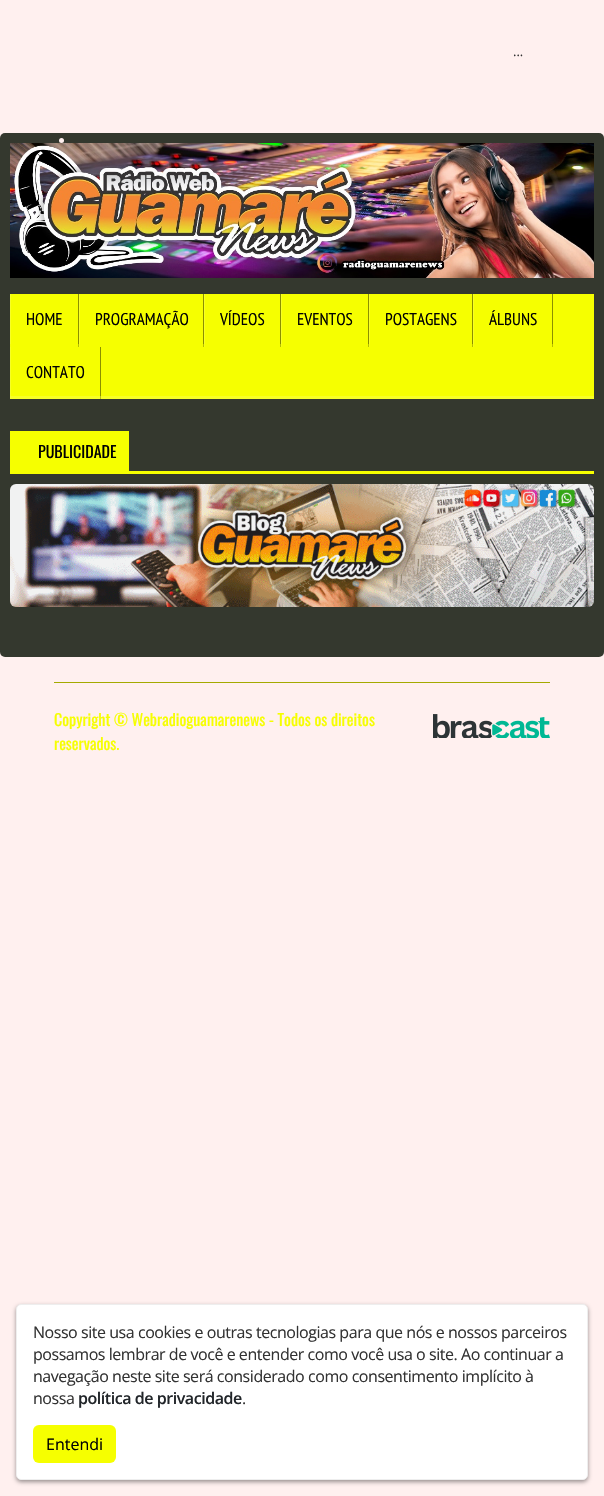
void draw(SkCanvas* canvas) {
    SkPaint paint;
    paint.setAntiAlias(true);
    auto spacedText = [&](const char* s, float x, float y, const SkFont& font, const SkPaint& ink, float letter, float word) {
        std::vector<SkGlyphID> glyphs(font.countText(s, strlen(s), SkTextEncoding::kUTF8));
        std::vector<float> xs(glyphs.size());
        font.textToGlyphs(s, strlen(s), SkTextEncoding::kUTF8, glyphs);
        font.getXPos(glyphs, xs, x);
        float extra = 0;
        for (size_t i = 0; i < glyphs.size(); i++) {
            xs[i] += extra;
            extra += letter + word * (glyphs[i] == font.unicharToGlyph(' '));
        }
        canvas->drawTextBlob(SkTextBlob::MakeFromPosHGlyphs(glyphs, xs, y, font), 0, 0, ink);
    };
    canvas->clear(0xFFFFF0EF);
    SkFont font1(fontMgr->matchFamilyStyle("Open Sans", SkFontStyle::Normal()), 13);
    font1.setSubpixel(true);
    paint.setColor(0xFF333333);
    canvas->drawString("...", 513, 56, font1, paint);
    paint.setColor(0xFF34382E);
    canvas->drawRoundRect(SkRect::MakeXYWH(0, 133, 604, 524), 5, 5, paint);
    paint.setColor(0xFFFFF0EF);
    canvas->drawCircle(61.5f, 140.5f, 2.5f, paint);
    canvas->drawImageRect(SkImages::DeferredFromEncodedData(SkData::MakeFromFileName("img1.png")), SkRect::MakeXYWH(10, 143, 584, 135), SkSamplingOptions());
    paint.setColor(0xFFF6FF00);
    canvas->drawRect(SkRect::MakeXYWH(11, 294, 583, 102), paint);
    paint.setColor(0xFFF7FF26);
    canvas->drawRect(SkRect::MakeXYWH(10, 396, 584, 3), paint);
    paint.setColor(0xFFF8FF37);
    canvas->drawRect(SkRect::MakeXYWH(10, 396, 1, 3), paint);
    paint.setColor(0xFFB9BF1D);
    canvas->drawRect(SkRect::MakeXYWH(100, 396, 1, 3), paint);
    paint.setColor(0xFFB9BF00);
    canvas->drawRect(SkRect::MakeXYWH(78, 344, 1, 3), paint);
    paint.setColor(0xFFF7FF14);
    canvas->drawRect(SkRect::MakeXYWH(10, 344, 1, 3), paint);
    paint.setColor(0xFF8B8F00);
    canvas->drawRect(SkRect::MakeXYWH(78, 294, 1, 50), paint);
    paint.setColor(0xFFF8FF27);
    canvas->drawRect(SkRect::MakeXYWH(10, 294, 1, 50), paint);
    SkFont font2(fontMgr->matchFamilyStyle("PT Sans Narrow", SkFontStyle::Normal()), 17);
    font2.setSubpixel(true);
    paint.setColor(0xFF000103);
    canvas->drawString("HOME", 26, 325, font2, paint);
    paint.setColor(0xFFB9BF00);
    canvas->drawRect(SkRect::MakeXYWH(203, 344, 1, 3), paint);
    paint.setColor(0xFFF7FF14);
    canvas->drawRect(SkRect::MakeXYWH(79, 344, 1, 3), paint);
    paint.setColor(0xFF8B8F00);
    canvas->drawRect(SkRect::MakeXYWH(203, 294, 1, 50), paint);
    paint.setColor(0xFFF8FF27);
    canvas->drawRect(SkRect::MakeXYWH(79, 294, 1, 50), paint);
    paint.setColor(0xFF000103);
    canvas->drawString("PROGRAMAÇÃO", 95, 325, font2, paint);
    paint.setColor(0xFFB9BF00);
    canvas->drawRect(SkRect::MakeXYWH(280, 344, 1, 3), paint);
    paint.setColor(0xFFF7FF14);
    canvas->drawRect(SkRect::MakeXYWH(204, 344, 1, 3), paint);
    paint.setColor(0xFF8B8F00);
    canvas->drawRect(SkRect::MakeXYWH(280, 294, 1, 50), paint);
    paint.setColor(0xFFF8FF27);
    canvas->drawRect(SkRect::MakeXYWH(204, 294, 1, 50), paint);
    paint.setColor(0xFF000103);
    canvas->drawString("VÍDEOS", 220, 325, font2, paint);
    paint.setColor(0xFFB9BF00);
    canvas->drawRect(SkRect::MakeXYWH(368, 344, 1, 3), paint);
    paint.setColor(0xFFF7FF14);
    canvas->drawRect(SkRect::MakeXYWH(281, 344, 1, 3), paint);
    paint.setColor(0xFF8B8F00);
    canvas->drawRect(SkRect::MakeXYWH(368, 294, 1, 50), paint);
    paint.setColor(0xFFF8FF27);
    canvas->drawRect(SkRect::MakeXYWH(281, 294, 1, 50), paint);
    paint.setColor(0xFF000103);
    canvas->drawString("EVENTOS", 297, 325, font2, paint);
    paint.setColor(0xFFB9BF00);
    canvas->drawRect(SkRect::MakeXYWH(472, 344, 1, 3), paint);
    paint.setColor(0xFFF7FF14);
    canvas->drawRect(SkRect::MakeXYWH(369, 344, 1, 3), paint);
    paint.setColor(0xFF8B8F00);
    canvas->drawRect(SkRect::MakeXYWH(472, 294, 1, 50), paint);
    paint.setColor(0xFFF8FF27);
    canvas->drawRect(SkRect::MakeXYWH(369, 294, 1, 50), paint);
    paint.setColor(0xFF000103);
    canvas->drawString("POSTAGENS", 385, 325, font2, paint);
    paint.setColor(0xFFB9BF00);
    canvas->drawRect(SkRect::MakeXYWH(552, 344, 1, 3), paint);
    paint.setColor(0xFFF7FF14);
    canvas->drawRect(SkRect::MakeXYWH(473, 344, 1, 3), paint);
    paint.setColor(0xFF8B8F00);
    canvas->drawRect(SkRect::MakeXYWH(552, 294, 1, 50), paint);
    paint.setColor(0xFFF8FF27);
    canvas->drawRect(SkRect::MakeXYWH(473, 294, 1, 50), paint);
    paint.setColor(0xFF000103);
    canvas->drawString("ÁLBUNS", 489, 325, font2, paint);
    paint.setColor(0xFF8A8F00);
    canvas->drawRect(SkRect::MakeXYWH(100, 347, 1, 49), paint);
    paint.setColor(0xFFF7FF27);
    canvas->drawRect(SkRect::MakeXYWH(10, 347, 1, 49), paint);
    paint.setColor(0xFF000103);
    canvas->drawString("CONTATO", 26, 378, font2, paint);
    paint.setColor(0xFFF6FF00);
    canvas->drawRect(SkRect::MakeXYWH(10, 431, 119, 40), paint);
    SkFont font3(fontMgr->matchFamilyStyle("Oswald", SkFontStyle::Normal()), 16);
    font3.setSubpixel(true);
    paint.setColor(0xFF000103);
    canvas->drawString("PUBLICIDADE", 38, 458, font3, paint);
    paint.setColor(0xFFF6FF00);
    canvas->drawRect(SkRect::MakeXYWH(10, 471, 584, 3), paint);
    canvas->drawImageRect(SkImages::DeferredFromEncodedData(SkData::MakeFromFileName("img2.png")), SkRect::MakeXYWH(10, 484, 584, 123), SkSamplingOptions());
    paint.setColor(0xFFA4AA00);
    canvas->drawRect(SkRect::MakeXYWH(54, 682, 496, 1), paint);
    paint.setColor(0xFFF6FF00);
    canvas->drawString("Copyright © Webradioguamarenews - Todos os direitos", 54, 726, font3, paint);
    canvas->drawString("reservados.", 54, 750, font3, paint);
    canvas->drawImageRect(SkImages::DeferredFromEncodedData(SkData::MakeFromFileName("img3.png")), SkRect::MakeXYWH(433, 714, 117, 24), SkSamplingOptions());
    paint.setColor(0x66000000);
    paint.setMaskFilter(SkMaskFilter::MakeBlur(kNormal_SkBlurStyle, 2));
    canvas->drawRoundRect(SkRect::MakeXYWH(16, 1306, 572, 176), 5, 5, paint);
    paint.setMaskFilter(nullptr);
    paint.setColor(0xFFFFFFFF);
    canvas->drawRoundRect(SkRect::MakeXYWH(16.5f, 1304.5f, 571, 175), 4.5f, 4.5f, paint);
    paint.setStyle(SkPaint::kStroke_Style);
    paint.setStrokeWidth(1);
    paint.setColor(0xFFEEEEEE);
    canvas->drawRoundRect(SkRect::MakeXYWH(16.5f, 1304.5f, 571, 175), 4.5f, 4.5f, paint);
    SkFont font4(fontMgr->matchFamilyStyle("Open Sans", SkFontStyle::Normal()), 16);
    font4.setSubpixel(true);
    paint.setStyle(SkPaint::kFill_Style);
    paint.setColor(0xFF333333);
    spacedText("Nosso site usa cookies e outras tecnologias para que nós e nossos parceiros", 33, 1338, font4, paint, -0.45f, 0);
    spacedText("possamos lembrar de você e entender como você usa o site. Ao continuar a", 33, 1360, font4, paint, -0.45f, 0);
    spacedText("navegação neste site será considerado como consentimento implícito à", 33, 1382, font4, paint, -0.45f, 0);
    spacedText("nossa", 33, 1404, font4, paint, -0.45f, 0);
    SkFont font5(fontMgr->matchFamilyStyle("Open Sans", SkFontStyle(600, SkFontStyle::kNormal_Width, SkFontStyle::kUpright_Slant)), 16);
    font5.setSubpixel(true);
    paint.setColor(0xFF212529);
    spacedText("política de privacidade", 78, 1404, font5, paint, -0.45f, 0);
    paint.setColor(0xFF333333);
    spacedText(".", 242, 1404, font4, paint, -0.45f, 0);
    paint.setColor(0xFFF6FF00);
    canvas->drawRoundRect(SkRect::MakeXYWH(33, 1425, 83, 38), 6, 6, paint);
    paint.setColor(0xFF000103);
    canvas->drawString("Entendi", 46, 1450, font4, paint);
}
